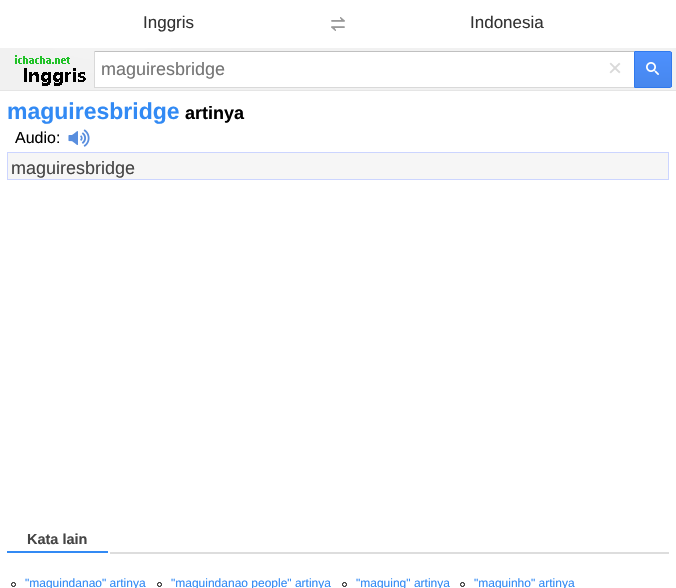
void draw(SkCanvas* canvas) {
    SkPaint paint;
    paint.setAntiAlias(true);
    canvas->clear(0xFFFFFFFF);
    {
        const SkColor colors[] = {0xFFFAFAFA, 0xFFF1F1F1};
        const float stops[] = {0, 1};
        paint.setShader(SkGradientShader::MakeRadial({100, -40}, 120, colors, stops, 2, SkTileMode::kClamp));
        paint.setAlpha(255);
    }
    canvas->drawRect(SkRect::MakeXYWH(0, 48, 676, 42), paint);
    paint.setShader(nullptr);
    paint.setColor(0xFFE5E5E5);
    canvas->drawRect(SkRect::MakeXYWH(0, 90, 676, 1), paint);
    SkFont font1(fontMgr->matchFamilyStyle("Liberation Sans", SkFontStyle::Normal()), 17);
    font1.setSubpixel(true);
    paint.setColor(0xFF333333);
    canvas->drawString("Inggris", 143, 28, font1, paint);
    canvas->drawImageRect(SkImages::DeferredFromEncodedData(SkData::MakeFromFileName("img1.png")), SkRect::MakeXYWH(331, 17, 14, 14), SkSamplingOptions());
    canvas->drawString("Indonesia", 470, 28, font1, paint);
    canvas->drawImageRect(SkImages::DeferredFromEncodedData(SkData::MakeFromFileName("img2.png")), SkRect::MakeXYWH(15, 55, 71, 31), SkSamplingOptions());
    paint.setColor(0xFFFFFFFF);
    canvas->drawRect(SkRect::MakeXYWH(95, 52, 539, 35), paint);
    paint.setColor(0xFFC0C0C0);
    canvas->drawRect(SkRect::MakeXYWH(94, 51, 540, 1), paint);
    paint.setColor(0xFFD9D9D9);
    canvas->drawRect(SkRect::MakeXYWH(94, 87, 540, 1), paint);
    canvas->drawRect(SkRect::MakeXYWH(94, 51, 1, 37), paint);
    SkFont font2(fontMgr->matchFamilyStyle("Liberation Sans", SkFontStyle::Normal()), 18);
    font2.setSubpixel(true);
    paint.setColor(0xFF757575);
    canvas->drawString("maguiresbridge", 101, 75, font2, paint);
    SkFont font3(fontMgr->matchFamilyStyle("Liberation Sans", SkFontStyle::Normal()), 24);
    font3.setSubpixel(true);
    paint.setColor(0xFFD9D9D9);
    canvas->drawString("×", 608, 76, font3, paint);
    {
        const SkColor colors[] = {0xFF4D90FE, 0xFF4787ED};
        const float stops[] = {0, 1};
        const SkPoint ends[] = {{635, 52}, {635, 87}};
        paint.setShader(SkGradientShader::MakeLinear(ends, colors, stops, 2, SkTileMode::kClamp));
        paint.setAlpha(255);
    }
    canvas->drawRect(SkRect::MakeXYWH(635, 52, 37, 35), paint);
    paint.setStyle(SkPaint::kStroke_Style);
    paint.setStrokeWidth(1);
    paint.setShader(nullptr);
    paint.setColor(0xFF3079ED);
    canvas->drawPath(SkPathBuilder().moveTo(634.5f, 51.5f).lineTo(670, 51.5f).cubicTo(671, 51.5f, 671.5f, 52, 671.5f, 53).lineTo(671.5f, 86).cubicTo(671.5f, 87, 671, 87.5f, 670, 87.5f).lineTo(634.5f, 87.5f).close().detach(), paint);
    canvas->drawImageRect(SkImages::DeferredFromEncodedData(SkData::MakeFromFileName("img3.png")), SkRect::MakeXYWH(646, 62, 13, 13), SkSamplingOptions());
    SkFont font4(fontMgr->matchFamilyStyle("Liberation Sans", SkFontStyle::Bold()), 23);
    font4.setSubpixel(true);
    paint.setStyle(SkPaint::kFill_Style);
    paint.setColor(0xFF328AF4);
    canvas->drawString("maguiresbridge", 7, 119, font4, paint);
    SkFont font5(fontMgr->matchFamilyStyle("Liberation Sans", SkFontStyle::Bold()), 18);
    font5.setSubpixel(true);
    paint.setColor(0xFF000000);
    canvas->drawString("artinya", 185, 119, font5, paint);
    SkFont font6(fontMgr->matchFamilyStyle("Liberation Sans", SkFontStyle::Normal()), 16);
    font6.setSubpixel(true);
    canvas->drawString("Audio:", 15, 143, font6, paint);
    canvas->drawImageRect(SkImages::DeferredFromEncodedData(SkData::MakeFromFileName("img4.png")), SkRect::MakeXYWH(68, 129, 22, 18), SkSamplingOptions());
    paint.setColor(0xFFF6F6F6);
    canvas->drawRect(SkRect::MakeXYWH(7.5f, 152.5f, 661, 27), paint);
    paint.setStyle(SkPaint::kStroke_Style);
    paint.setColor(0xFFCCD5FF);
    canvas->drawRect(SkRect::MakeXYWH(7.5f, 152.5f, 661, 27), paint);
    paint.setStyle(SkPaint::kFill_Style);
    paint.setColor(0xFF454545);
    canvas->drawString("maguiresbridge", 11, 174, font2, paint);
    paint.setColor(0xFFDDDDDD);
    canvas->drawRect(SkRect::MakeXYWH(110, 552, 559, 2), paint);
    paint.setColor(0xFF328AF4);
    canvas->drawRect(SkRect::MakeXYWH(7, 551, 101, 2), paint);
    SkFont font7(fontMgr->matchFamilyStyle("Liberation Sans", SkFontStyle::Bold()), 14.5f);
    font7.setSubpixel(true);
    paint.setColor(0xFF454545);
    canvas->drawString("Kata lain", 27, 544, font7, paint);
    paint.setStyle(SkPaint::kStroke_Style);
    paint.setColor(0xFF000000);
    canvas->drawCircle(13.5f, 584.5f, 2, paint);
    SkFont font8(fontMgr->matchFamilyStyle("Liberation Sans", SkFontStyle::Normal()), 12);
    font8.setSubpixel(true);
    paint.setStyle(SkPaint::kFill_Style);
    paint.setColor(0xFF328AF4);
    canvas->drawString("\"maguindanao\" artinya", 25, 587, font8, paint);
    paint.setStyle(SkPaint::kStroke_Style);
    paint.setColor(0xFF000000);
    canvas->drawCircle(159.5f, 584.5f, 2, paint);
    paint.setStyle(SkPaint::kFill_Style);
    paint.setColor(0xFF328AF4);
    canvas->drawString("\"maguindanao people\" artinya", 171, 587, font8, paint);
    paint.setStyle(SkPaint::kStroke_Style);
    paint.setColor(0xFF000000);
    canvas->drawCircle(344.5f, 584.5f, 2, paint);
    paint.setStyle(SkPaint::kFill_Style);
    paint.setColor(0xFF328AF4);
    canvas->drawString("\"maguing\" artinya", 356, 587, font8, paint);
    paint.setStyle(SkPaint::kStroke_Style);
    paint.setColor(0xFF000000);
    canvas->drawCircle(462.5f, 584.5f, 2, paint);
    paint.setStyle(SkPaint::kFill_Style);
    paint.setColor(0xFF328AF4);
    canvas->drawString("\"maguinho\" artinya", 474, 587, font8, paint);
}
